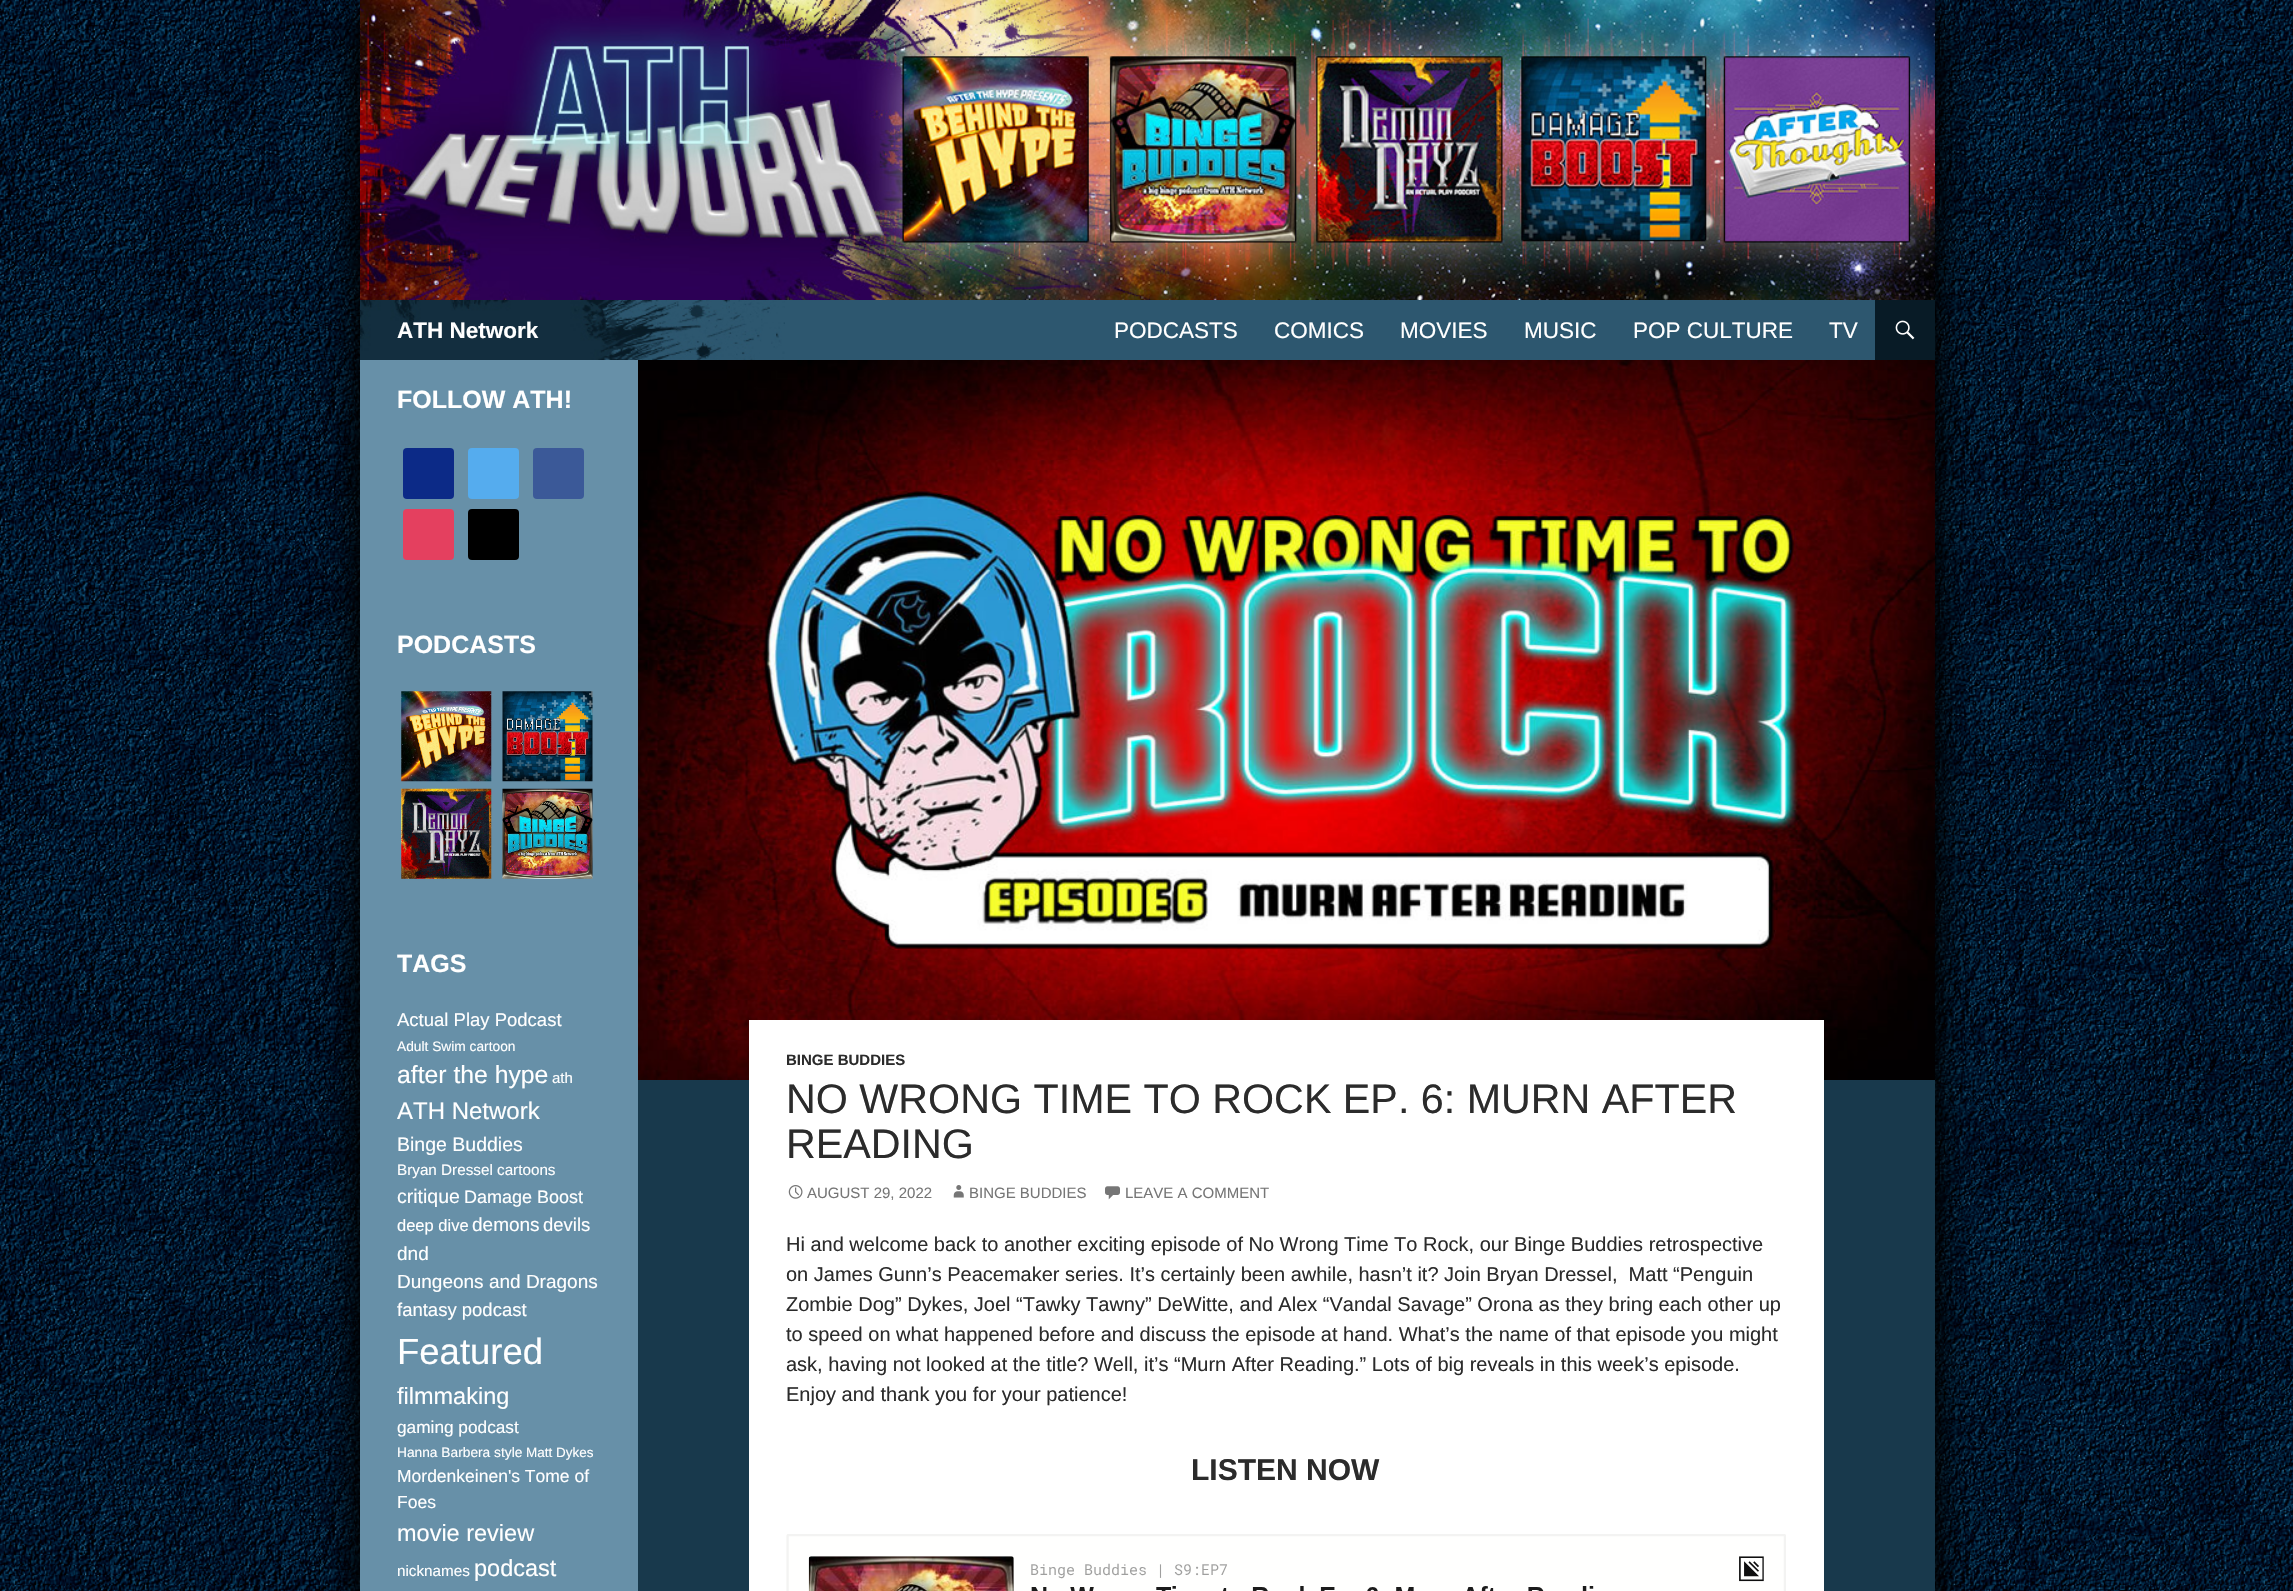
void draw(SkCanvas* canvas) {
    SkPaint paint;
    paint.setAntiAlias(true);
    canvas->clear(0xFFFFFFFF);
    canvas->drawImageRect(SkImages::DeferredFromEncodedData(SkData::MakeFromFileName("img1.png")), SkRect::MakeXYWH(0, 0, 2293, 1591), SkSamplingOptions());
    paint.setColor(0xFF000000);
    paint.setMaskFilter(SkMaskFilter::MakeBlur(kNormal_SkBlurStyle, 25));
    canvas->drawRect(SkRect::MakeXYWH(360, 20, 1575, 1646), paint);
    paint.setMaskFilter(nullptr);
    paint.setMaskFilter(SkMaskFilter::MakeBlur(kNormal_SkBlurStyle, 11));
    canvas->drawRect(SkRect::MakeXYWH(360, 5, 1575, 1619), paint);
    paint.setMaskFilter(nullptr);
    canvas->drawImageRect(SkImages::DeferredFromEncodedData(SkData::MakeFromFileName("img2.png")), SkRect::MakeXYWH(360, 0, 1575, 300), SkSamplingOptions());
    paint.setColor(0xFF2D576F);
    canvas->drawRect(SkRect::MakeXYWH(785, 300, 1090, 60), paint);
    canvas->drawImageRect(SkImages::DeferredFromEncodedData(SkData::MakeFromFileName("img3.png")), SkRect::MakeXYWH(360, 300, 425, 60), SkSamplingOptions());
    SkFont font1(fontMgr->matchFamilyStyle("Liberation Sans", SkFontStyle::Bold()), 22.5f);
    font1.setSubpixel(true);
    paint.setColor(0xFFFFFFFF);
    canvas->drawString("ATH Network", 397, 338, font1, paint);
    SkFont font2(fontMgr->matchFamilyStyle("Liberation Sans", SkFontStyle::Normal()), 22.5f);
    font2.setSubpixel(true);
    canvas->drawString("PODCASTS", 1114, 338, font2, paint);
    canvas->drawString("COMICS", 1274, 338, font2, paint);
    canvas->drawString("MOVIES", 1400, 338, font2, paint);
    canvas->drawString("MUSIC", 1524, 338, font2, paint);
    canvas->drawString("POP CULTURE", 1633, 338, font2, paint);
    canvas->drawString("TV", 1829, 338, font2, paint);
    paint.setColor(0xFF081B26);
    canvas->drawRect(SkRect::MakeXYWH(1875, 300, 60, 60), paint);
    canvas->drawImageRect(SkImages::DeferredFromEncodedData(SkData::MakeFromFileName("img4.png")), SkRect::MakeXYWH(1895, 320, 20, 20), SkSamplingOptions());
    paint.setColor(0xFF6790A8);
    canvas->drawRect(SkRect::MakeXYWH(360, 360, 278, 1231), paint);
    paint.setColor(0xFF18394C);
    canvas->drawRect(SkRect::MakeXYWH(638, 1080, 1297, 511), paint);
    SkFont font3(fontMgr->matchFamilyStyle("Liberation Sans", SkFontStyle::Bold()), 25);
    font3.setSubpixel(true);
    paint.setColor(0xFFFFFFFF);
    canvas->drawString("FOLLOW ATH!", 397, 408, font3, paint);
    paint.setColor(0xFF0C2A87);
    canvas->drawRoundRect(SkRect::MakeXYWH(403, 448, 51, 51), 4, 4, paint);
    paint.setColor(0xFF55ACEE);
    canvas->drawRoundRect(SkRect::MakeXYWH(468, 448, 51, 51), 4, 4, paint);
    paint.setColor(0xFF3B5998);
    canvas->drawRoundRect(SkRect::MakeXYWH(533, 448, 51, 51), 4, 4, paint);
    paint.setColor(0xFFE4405F);
    canvas->drawRoundRect(SkRect::MakeXYWH(403, 509, 51, 51), 4, 4, paint);
    paint.setColor(0xFF000000);
    canvas->drawRoundRect(SkRect::MakeXYWH(468, 509, 51, 51), 4, 4, paint);
    paint.setColor(0xFFFFFFFF);
    canvas->drawString("PODCASTS", 397, 653, font3, paint);
    canvas->drawImageRect(SkImages::DeferredFromEncodedData(SkData::MakeFromFileName("img5.png")), SkRect::MakeXYWH(401, 691, 91, 91), SkSamplingOptions());
    canvas->drawImageRect(SkImages::DeferredFromEncodedData(SkData::MakeFromFileName("img6.png")), SkRect::MakeXYWH(502, 691, 91, 91), SkSamplingOptions());
    canvas->drawImageRect(SkImages::DeferredFromEncodedData(SkData::MakeFromFileName("img7.png")), SkRect::MakeXYWH(401, 788, 91, 91), SkSamplingOptions());
    canvas->drawImageRect(SkImages::DeferredFromEncodedData(SkData::MakeFromFileName("img8.png")), SkRect::MakeXYWH(502, 788, 91, 91), SkSamplingOptions());
    canvas->drawString("TAGS", 397, 972, font3, paint);
    SkFont font4(fontMgr->matchFamilyStyle("Liberation Sans", SkFontStyle::Normal()), 18.5f);
    font4.setSubpixel(true);
    canvas->drawString("Actual Play Podcast", 397, 1026, font4, paint);
    SkFont font5(fontMgr->matchFamilyStyle("Liberation Sans", SkFontStyle::Normal()), 13.75f);
    font5.setSubpixel(true);
    canvas->drawString("Adult Swim cartoon", 397, 1051, font5, paint);
    SkFont font6(fontMgr->matchFamilyStyle("Liberation Sans", SkFontStyle::Normal()), 24.75f);
    font6.setSubpixel(true);
    canvas->drawString("after the hype", 397, 1083, font6, paint);
    SkFont font7(fontMgr->matchFamilyStyle("Liberation Sans", SkFontStyle::Normal()), 15);
    font7.setSubpixel(true);
    canvas->drawString("ath", 552, 1083, font7, paint);
    SkFont font8(fontMgr->matchFamilyStyle("Liberation Sans", SkFontStyle::Normal()), 24);
    font8.setSubpixel(true);
    canvas->drawString("ATH Network", 397, 1119, font8, paint);
    SkFont font9(fontMgr->matchFamilyStyle("Liberation Sans", SkFontStyle::Normal()), 19.5f);
    font9.setSubpixel(true);
    canvas->drawString("Binge Buddies", 397, 1151, font9, paint);
    SkFont font10(fontMgr->matchFamilyStyle("Liberation Sans", SkFontStyle::Normal()), 15.25f);
    font10.setSubpixel(true);
    canvas->drawString("Bryan Dressel cartoons", 397, 1175, font10, paint);
    canvas->drawString("critique", 397, 1203, font9, paint);
    SkFont font11(fontMgr->matchFamilyStyle("Liberation Sans", SkFontStyle::Normal()), 18);
    font11.setSubpixel(true);
    canvas->drawString("Damage Boost", 464, 1203, font11, paint);
    SkFont font12(fontMgr->matchFamilyStyle("Liberation Sans", SkFontStyle::Normal()), 16.5f);
    font12.setSubpixel(true);
    canvas->drawString("deep dive", 397, 1231, font12, paint);
    SkFont font13(fontMgr->matchFamilyStyle("Liberation Sans", SkFontStyle::Normal()), 19);
    font13.setSubpixel(true);
    canvas->drawString("demons", 472, 1231, font13, paint);
    canvas->drawString("devils", 543, 1231, font4, paint);
    canvas->drawString("dnd", 397, 1260, font13, paint);
    canvas->drawString("Dungeons and Dragons", 397, 1288, font13, paint);
    canvas->drawString("fantasy podcast", 397, 1316, font4, paint);
    SkFont font14(fontMgr->matchFamilyStyle("Liberation Sans", SkFontStyle::Normal()), 36.5f);
    font14.setSubpixel(true);
    canvas->drawString("Featured", 397, 1364, font14, paint);
    SkFont font15(fontMgr->matchFamilyStyle("Liberation Sans", SkFontStyle::Normal()), 23.5f);
    font15.setSubpixel(true);
    canvas->drawString("filmmaking", 397, 1404, font15, paint);
    SkFont font16(fontMgr->matchFamilyStyle("Liberation Sans", SkFontStyle::Normal()), 17.25f);
    font16.setSubpixel(true);
    canvas->drawString("gaming podcast", 397, 1433, font16, paint);
    canvas->drawString("Hanna Barbera style", 397, 1457, font5, paint);
    SkFont font17(fontMgr->matchFamilyStyle("Liberation Sans", SkFontStyle::Normal()), 13.5f);
    font17.setSubpixel(true);
    canvas->drawString("Matt Dykes", 526, 1457, font17, paint);
    SkFont font18(fontMgr->matchFamilyStyle("Liberation Sans", SkFontStyle::Normal()), 17.5f);
    font18.setSubpixel(true);
    canvas->drawString("Mordenkeinen's Tome of", 397, 1482, font18, paint);
    canvas->drawString("Foes", 397, 1508, font18, paint);
    canvas->drawString("movie review", 397, 1541, font15, paint);
    canvas->drawString("nicknames", 397, 1576, font10, paint);
    canvas->drawString("podcast", 474, 1576, font15, paint);
    canvas->drawImageRect(SkImages::DeferredFromEncodedData(SkData::MakeFromFileName("img9.png")), SkRect::MakeXYWH(638, 360, 1297, 720), SkSamplingOptions());
    canvas->drawRect(SkRect::MakeXYWH(749, 1020, 1075, 195), paint);
    SkFont font19(fontMgr->matchFamilyStyle("Liberation Sans", SkFontStyle::Bold()), 15);
    font19.setSubpixel(true);
    paint.setColor(0xFF2B2B2B);
    canvas->drawString("BINGE BUDDIES", 786, 1065, font19, paint);
    SkFont font20(fontMgr->matchFamilyStyle("Liberation Sans", SkFontStyle::Normal()), 41.25f);
    font20.setSubpixel(true);
    canvas->drawString("NO WRONG TIME TO ROCK EP. 6: MURN AFTER", 786, 1113, font20, paint);
    canvas->drawString("READING", 786, 1158, font20, paint);
    canvas->drawImageRect(SkImages::DeferredFromEncodedData(SkData::MakeFromFileName("img10.png")), SkRect::MakeXYWH(788, 1185, 15, 14), SkSamplingOptions());
    paint.setColor(0xFF767676);
    canvas->drawString("AUGUST 29, 2022", 807, 1198, font7, paint);
    canvas->drawImageRect(SkImages::DeferredFromEncodedData(SkData::MakeFromFileName("img11.png")), SkRect::MakeXYWH(953, 1185, 11, 13), SkSamplingOptions());
    canvas->drawString("BINGE BUDDIES", 969, 1198, font7, paint);
    canvas->drawImageRect(SkImages::DeferredFromEncodedData(SkData::MakeFromFileName("img12.png")), SkRect::MakeXYWH(1105, 1186, 15, 14), SkSamplingOptions());
    canvas->drawString("LEAVE A COMMENT", 1125, 1198, font7, paint);
    paint.setColor(0xFFFFFFFF);
    canvas->drawRect(SkRect::MakeXYWH(749, 1215, 1075, 376), paint);
    SkFont font21(fontMgr->matchFamilyStyle("Liberation Sans", SkFontStyle::Normal()), 20);
    font21.setSubpixel(true);
    paint.setColor(0xFF2B2B2B);
    canvas->drawString("Hi and welcome back to another exciting episode of No Wrong Time To Rock, our Binge Buddies retrospective", 786, 1251, font21, paint);
    canvas->drawString("on James Gunn’s Peacemaker series. It’s certainly been awhile, hasn’t it? Join Bryan Dressel,  Matt “Penguin", 786, 1281, font21, paint);
    canvas->drawString("Zombie Dog” Dykes, Joel “Tawky Tawny” DeWitte, and Alex “Vandal Savage” Orona as they bring each other up", 786, 1311, font21, paint);
    canvas->drawString("to speed on what happened before and discuss the episode at hand. What’s the name of that episode you might", 786, 1341, font21, paint);
    canvas->drawString("ask, having not looked at the title? Well, it’s “Murn After Reading.” Lots of big reveals in this week’s episode.", 786, 1371, font21, paint);
    canvas->drawString("Enjoy and thank you for your patience!", 786, 1401, font21, paint);
    SkFont font22(fontMgr->matchFamilyStyle("Liberation Sans", SkFontStyle::Bold()), 30);
    font22.setSubpixel(true);
    canvas->drawString("LISTEN NOW", 1191, 1480, font22, paint);
    canvas->drawImageRect(SkImages::DeferredFromEncodedData(SkData::MakeFromFileName("img13.png")), SkRect::MakeXYWH(786, 1534, 1000, 57), SkSamplingOptions());
}
